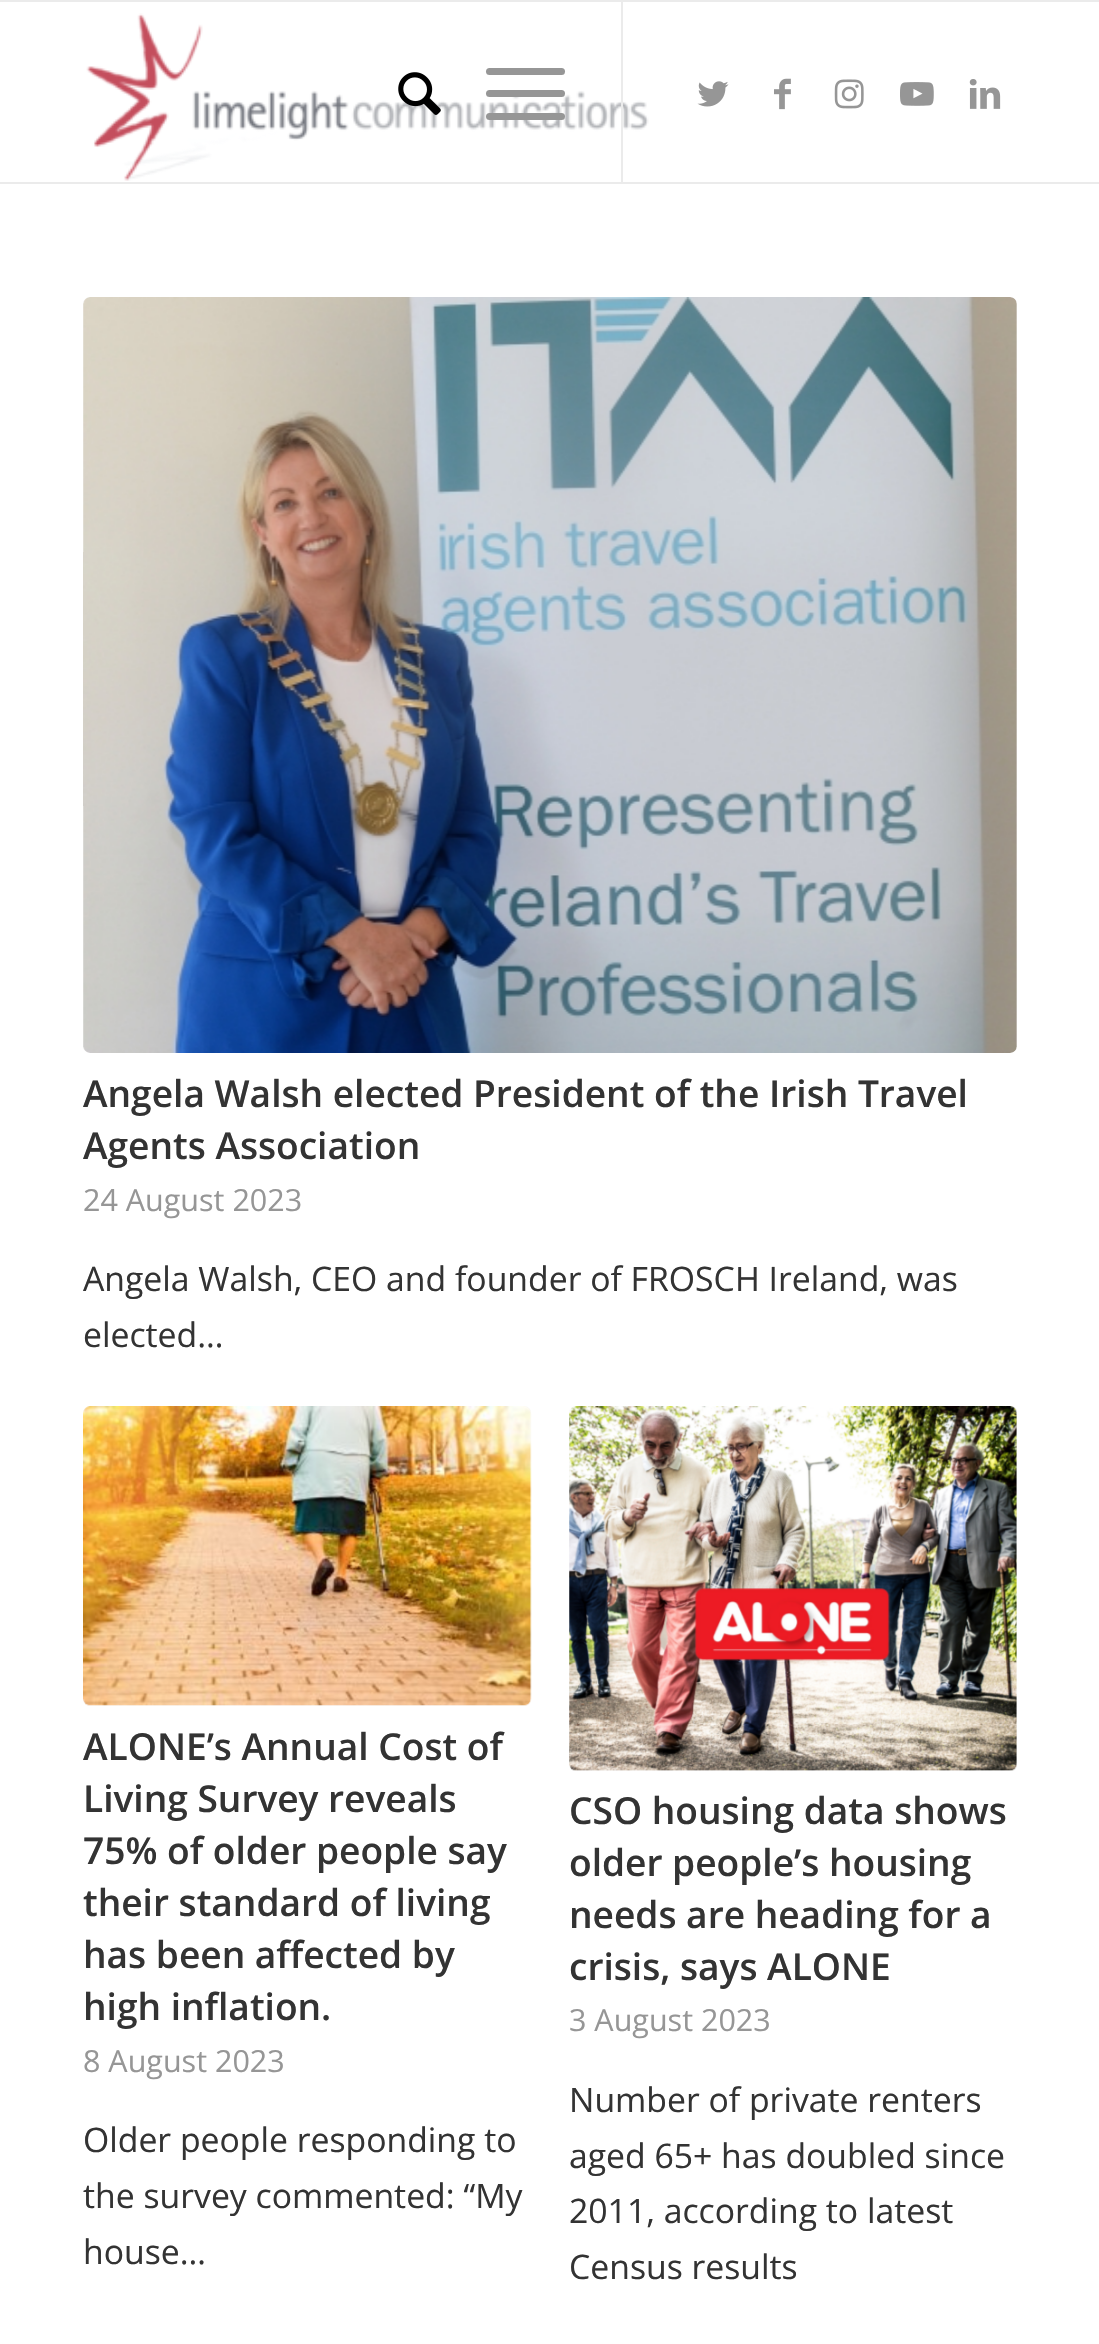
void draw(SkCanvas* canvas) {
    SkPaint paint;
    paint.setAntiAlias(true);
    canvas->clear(0xFFFFFFFF);
    paint.setColor(0xFFEBEBEB);
    canvas->drawRect(SkRect::MakeXYWH(0, 0, 1099, 2), paint);
    canvas->drawRect(SkRect::MakeXYWH(0, 182, 1099, 2), paint);
    canvas->drawImageRect(SkImages::DeferredFromEncodedData(SkData::MakeFromFileName("img1.png")), SkRect::MakeXYWH(86, 13, 563, 168), SkSamplingOptions());
    canvas->drawRect(SkRect::MakeXYWH(621, 2, 2, 180), paint);
    canvas->drawImageRect(SkImages::DeferredFromEncodedData(SkData::MakeFromFileName("img2.png")), SkRect::MakeXYWH(398, 72, 43, 43), SkSamplingOptions());
    paint.setColor(0xFF969696);
    canvas->drawRoundRect(SkRect::MakeXYWH(486, 90, 79, 7), 3.5f, 3.5f, paint);
    canvas->drawRoundRect(SkRect::MakeXYWH(486, 68, 79, 7), 3.5f, 3.5f, paint);
    canvas->drawRoundRect(SkRect::MakeXYWH(486, 113, 79, 7), 3.5f, 3.5f, paint);
    canvas->drawImageRect(SkImages::DeferredFromEncodedData(SkData::MakeFromFileName("img3.png")), SkRect::MakeXYWH(697, 81, 32, 26), SkSamplingOptions());
    canvas->drawImageRect(SkImages::DeferredFromEncodedData(SkData::MakeFromFileName("img4.png")), SkRect::MakeXYWH(774, 78, 17, 32), SkSamplingOptions());
    canvas->drawImageRect(SkImages::DeferredFromEncodedData(SkData::MakeFromFileName("img5.png")), SkRect::MakeXYWH(834, 79, 30, 30), SkSamplingOptions());
    canvas->drawImageRect(SkImages::DeferredFromEncodedData(SkData::MakeFromFileName("img6.png")), SkRect::MakeXYWH(900, 82, 34, 24), SkSamplingOptions());
    canvas->drawImageRect(SkImages::DeferredFromEncodedData(SkData::MakeFromFileName("img7.png")), SkRect::MakeXYWH(969, 79, 32, 30), SkSamplingOptions());
    paint.setColor(0xFFF8F8F8);
    canvas->drawRoundRect(SkRect::MakeXYWH(83, 297, 934, 756), 7, 7, paint);
    canvas->drawImageRect(SkImages::DeferredFromEncodedData(SkData::MakeFromFileName("img8.png")), SkRect::MakeXYWH(83, 297, 934, 756), SkSamplingOptions());
    SkFont font1(fontMgr->matchFamilyStyle("Open Sans", SkFontStyle(600, SkFontStyle::kNormal_Width, SkFontStyle::kUpright_Slant)), 37.1f);
    font1.setSubpixel(true);
    paint.setColor(0xFF333333);
    canvas->drawString("Angela Walsh elected President of the Irish Travel", 83, 1107, font1, paint);
    canvas->drawString("Agents Association", 83, 1159, font1, paint);
    SkFont font2(fontMgr->matchFamilyStyle("Open Sans", SkFontStyle::Normal()), 30.5f);
    font2.setSubpixel(true);
    paint.setColor(0xFF969696);
    canvas->drawString("24 August 2023", 83, 1211, font2, paint);
    SkFont font3(fontMgr->matchFamilyStyle("Open Sans", SkFontStyle::Normal()), 33.75f);
    font3.setSubpixel(true);
    paint.setColor(0xFF333333);
    canvas->drawString("Angela Walsh, CEO and founder of FROSCH Ireland, was", 83, 1291, font3, paint);
    canvas->drawString("elected…", 83, 1347, font3, paint);
    paint.setColor(0xFFF8F8F8);
    canvas->drawRoundRect(SkRect::MakeXYWH(83, 1406, 448, 300), 7, 7, paint);
    canvas->drawImageRect(SkImages::DeferredFromEncodedData(SkData::MakeFromFileName("img9.png")), SkRect::MakeXYWH(83, 1406, 449, 300), SkSamplingOptions());
    paint.setColor(0xFF333333);
    canvas->drawString("ALONE’s Annual Cost of", 83, 1760, font1, paint);
    canvas->drawString("Living Survey reveals", 83, 1812, font1, paint);
    canvas->drawString("75% of older people say", 83, 1864, font1, paint);
    canvas->drawString("their standard of living", 83, 1916, font1, paint);
    canvas->drawString("has been affected by", 83, 1968, font1, paint);
    canvas->drawString("high inflation.", 83, 2020, font1, paint);
    paint.setColor(0xFF969696);
    canvas->drawString("8 August 2023", 83, 2072, font2, paint);
    paint.setColor(0xFF333333);
    canvas->drawString("Older people responding to", 83, 2152, font3, paint);
    canvas->drawString("the survey commented: “My", 83, 2208, font3, paint);
    canvas->drawString("house…", 83, 2264, font3, paint);
    paint.setColor(0xFFF8F8F8);
    canvas->drawRoundRect(SkRect::MakeXYWH(569, 1406, 448, 365), 7, 7, paint);
    canvas->drawImageRect(SkImages::DeferredFromEncodedData(SkData::MakeFromFileName("img10.png")), SkRect::MakeXYWH(569, 1406, 448, 365), SkSamplingOptions());
    paint.setColor(0xFF333333);
    canvas->drawString("CSO housing data shows", 569, 1824, font1, paint);
    canvas->drawString("older people’s housing", 569, 1876, font1, paint);
    canvas->drawString("needs are heading for a", 569, 1928, font1, paint);
    canvas->drawString("crisis, says ALONE", 569, 1980, font1, paint);
    paint.setColor(0xFF969696);
    canvas->drawString("3 August 2023", 569, 2031, font2, paint);
    paint.setColor(0xFF333333);
    canvas->drawString("Number of private renters", 569, 2112, font3, paint);
    canvas->drawString("aged 65+ has doubled since", 569, 2168, font3, paint);
    canvas->drawString("2011, according to latest", 569, 2223, font3, paint);
    canvas->drawString("Census results", 569, 2279, font3, paint);
}
